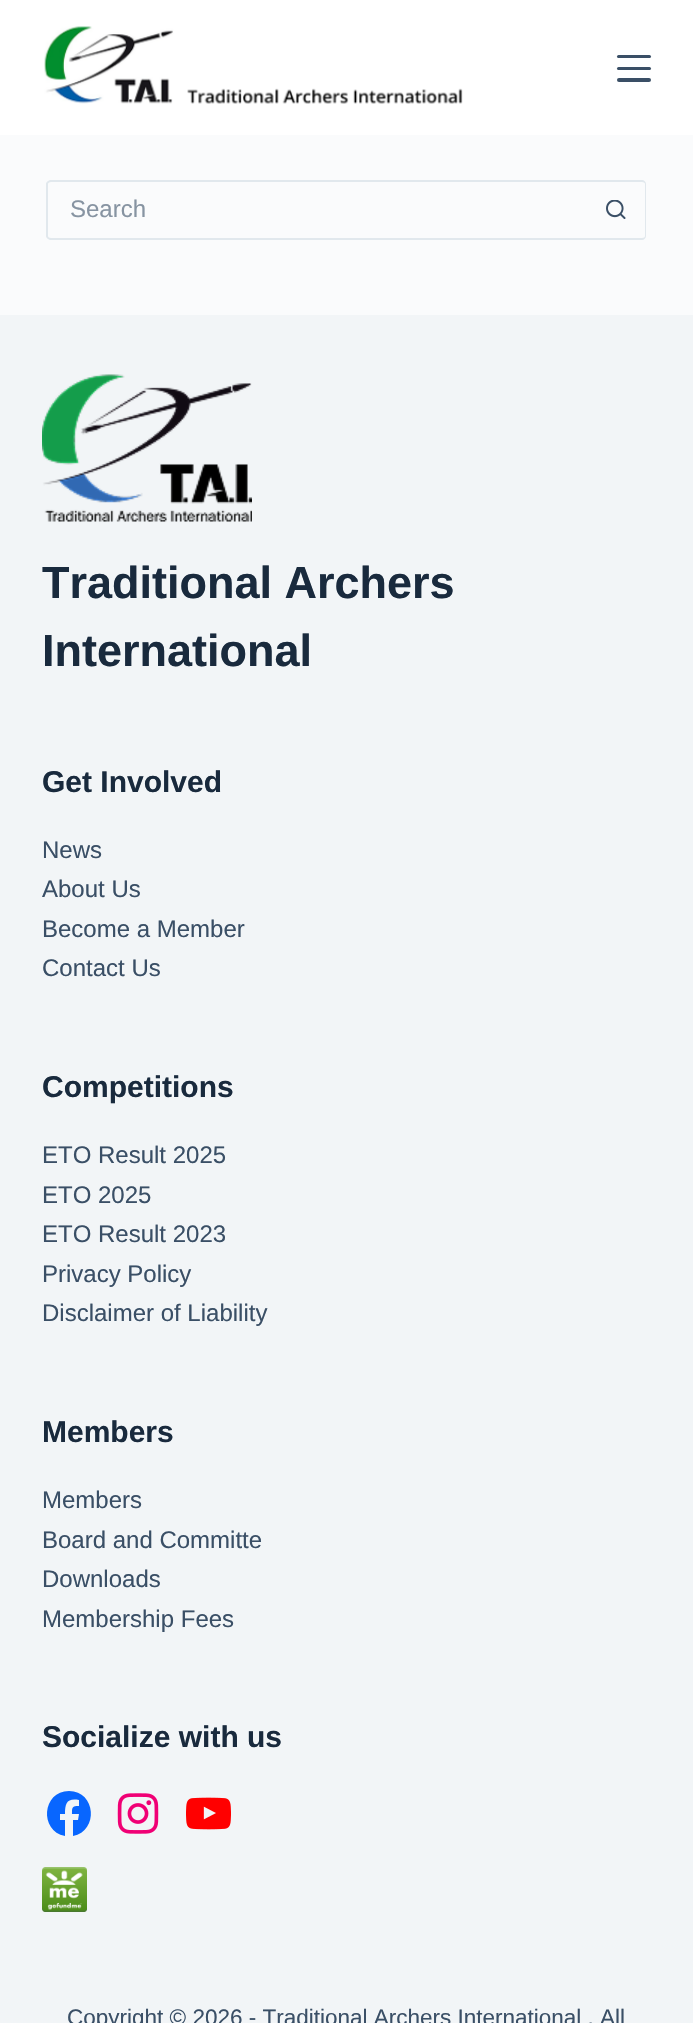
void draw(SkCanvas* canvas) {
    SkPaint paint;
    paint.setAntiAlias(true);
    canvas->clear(0xFFFAFBFC);
    paint.setColor(0xFFFFFFFF);
    canvas->drawRect(SkRect::MakeXYWH(0, 0, 693, 135), paint);
    canvas->drawImageRect(SkImages::DeferredFromEncodedData(SkData::MakeFromFileName("img1.png")), SkRect::MakeXYWH(44, 26, 419, 78), SkSamplingOptions());
    paint.setColor(0xFF3A4F66);
    canvas->drawRoundRect(SkRect::MakeXYWH(617, 55, 34, 3), 1.5f, 1.5f, paint);
    canvas->drawRoundRect(SkRect::MakeXYWH(617, 67, 34, 3), 1.5f, 1.5f, paint);
    canvas->drawRoundRect(SkRect::MakeXYWH(617, 78, 34, 4), 2, 2, paint);
    paint.setColor(0xFFE1E8ED);
    canvas->drawPath(SkPathBuilder(SkPathFillType::kEvenOdd).moveTo(51, 180).lineTo(586, 180).lineTo(586, 240).lineTo(51, 240).cubicTo(49, 240, 46, 238, 46, 236).lineTo(46, 184).cubicTo(46, 182, 49, 180, 51, 180).close().moveTo(51, 182).lineTo(586, 182).lineTo(586, 238).lineTo(51, 238).cubicTo(49, 238, 48, 237, 48, 236).lineTo(48, 184).cubicTo(48, 183, 49, 182, 51, 182).close().detach(), paint);
    SkFont font1(fontMgr->matchFamilyStyle("Liberation Sans", SkFontStyle::Normal()), 24);
    font1.setSubpixel(true);
    paint.setColor(0xFF8794A2);
    canvas->drawString("Search", 70, 217, font1, paint);
    paint.setColor(0xFFE1E8ED);
    canvas->drawPath(SkPathBuilder(SkPathFillType::kEvenOdd).moveTo(586, 180).lineTo(642, 180).cubicTo(644, 180, 646, 182, 646, 184).lineTo(646, 236).cubicTo(646, 238, 644, 240, 642, 240).lineTo(586, 240).close().moveTo(586, 182).lineTo(642, 182).cubicTo(644, 182, 645, 183, 645, 184).lineTo(645, 236).cubicTo(645, 237, 644, 238, 642, 238).lineTo(586, 238).close().detach(), paint);
    canvas->drawImageRect(SkImages::DeferredFromEncodedData(SkData::MakeFromFileName("img2.png")), SkRect::MakeXYWH(606, 200, 20, 19), SkSamplingOptions());
    paint.setColor(0xFFF2F5F7);
    canvas->drawRect(SkRect::MakeXYWH(0, 315, 693, 1708), paint);
    canvas->drawImageRect(SkImages::DeferredFromEncodedData(SkData::MakeFromFileName("img3.png")), SkRect::MakeXYWH(42, 374, 210, 148), SkSamplingOptions());
    SkFont font2(fontMgr->matchFamilyStyle("Liberation Sans", SkFontStyle::Bold()), 45);
    font2.setSubpixel(true);
    paint.setColor(0xFF192A3D);
    canvas->drawString("Traditional Archers", 42, 598, font2, paint);
    canvas->drawString("International", 42, 666, font2, paint);
    SkFont font3(fontMgr->matchFamilyStyle("Liberation Sans", SkFontStyle::Bold()), 30);
    font3.setSubpixel(true);
    canvas->drawString("Get Involved", 42, 792, font3, paint);
    paint.setColor(0xFF3A4F66);
    canvas->drawString("News", 42, 858, font1, paint);
    canvas->drawString("About Us", 42, 897, font1, paint);
    canvas->drawString("Become a Member", 42, 937, font1, paint);
    canvas->drawString("Contact Us", 42, 976, font1, paint);
    paint.setColor(0xFF192A3D);
    canvas->drawString("Competitions", 42, 1097, font3, paint);
    paint.setColor(0xFF3A4F66);
    canvas->drawString("ETO Result 2025", 42, 1163, font1, paint);
    canvas->drawString("ETO 2025", 42, 1203, font1, paint);
    canvas->drawString("ETO Result 2023", 42, 1242, font1, paint);
    canvas->drawString("Privacy Policy", 42, 1282, font1, paint);
    canvas->drawString("Disclaimer of Liability", 42, 1321, font1, paint);
    paint.setColor(0xFF192A3D);
    canvas->drawString("Members", 42, 1442, font3, paint);
    paint.setColor(0xFF3A4F66);
    canvas->drawString("Members", 42, 1508, font1, paint);
    canvas->drawString("Board and Committe", 42, 1548, font1, paint);
    canvas->drawString("Downloads", 42, 1587, font1, paint);
    canvas->drawString("Membership Fees", 42, 1627, font1, paint);
    paint.setColor(0xFF192A3D);
    canvas->drawString("Socialize with us", 42, 1747, font3, paint);
    paint.setColor(0xFF0866FF);
    canvas->drawPath(SkPathBuilder().moveTo(69, 1791).cubicTo(42, 1791, 39, 1831, 65, 1836).lineTo(65, 1820).lineTo(60, 1820).lineTo(60, 1814).lineTo(65, 1814).cubicTo(65, 1803, 67, 1798, 79, 1800).lineTo(79, 1806).cubicTo(72, 1806, 72, 1807, 72, 1814).lineTo(79, 1814).lineTo(78, 1820).lineTo(73, 1820).lineTo(73, 1836).cubicTo(99, 1831, 96, 1791, 69, 1791).close().detach(), paint);
    canvas->drawImageRect(SkImages::DeferredFromEncodedData(SkData::MakeFromFileName("img4.png")), SkRect::MakeXYWH(117, 1793, 42, 41), SkSamplingOptions());
    canvas->drawImageRect(SkImages::DeferredFromEncodedData(SkData::MakeFromFileName("img5.png")), SkRect::MakeXYWH(186, 1797, 45, 33), SkSamplingOptions());
    canvas->drawImageRect(SkImages::DeferredFromEncodedData(SkData::MakeFromFileName("img6.png")), SkRect::MakeXYWH(42, 1867, 45, 45), SkSamplingOptions());
    SkFont font4(fontMgr->matchFamilyStyle("Liberation Sans", SkFontStyle::Normal()), 22.5f);
    font4.setSubpixel(true);
    paint.setColor(0xFF3A4F66);
    canvas->drawString("Copyright © 2026 - Traditional Archers International . All", 67, 2025, font4, paint);
}
